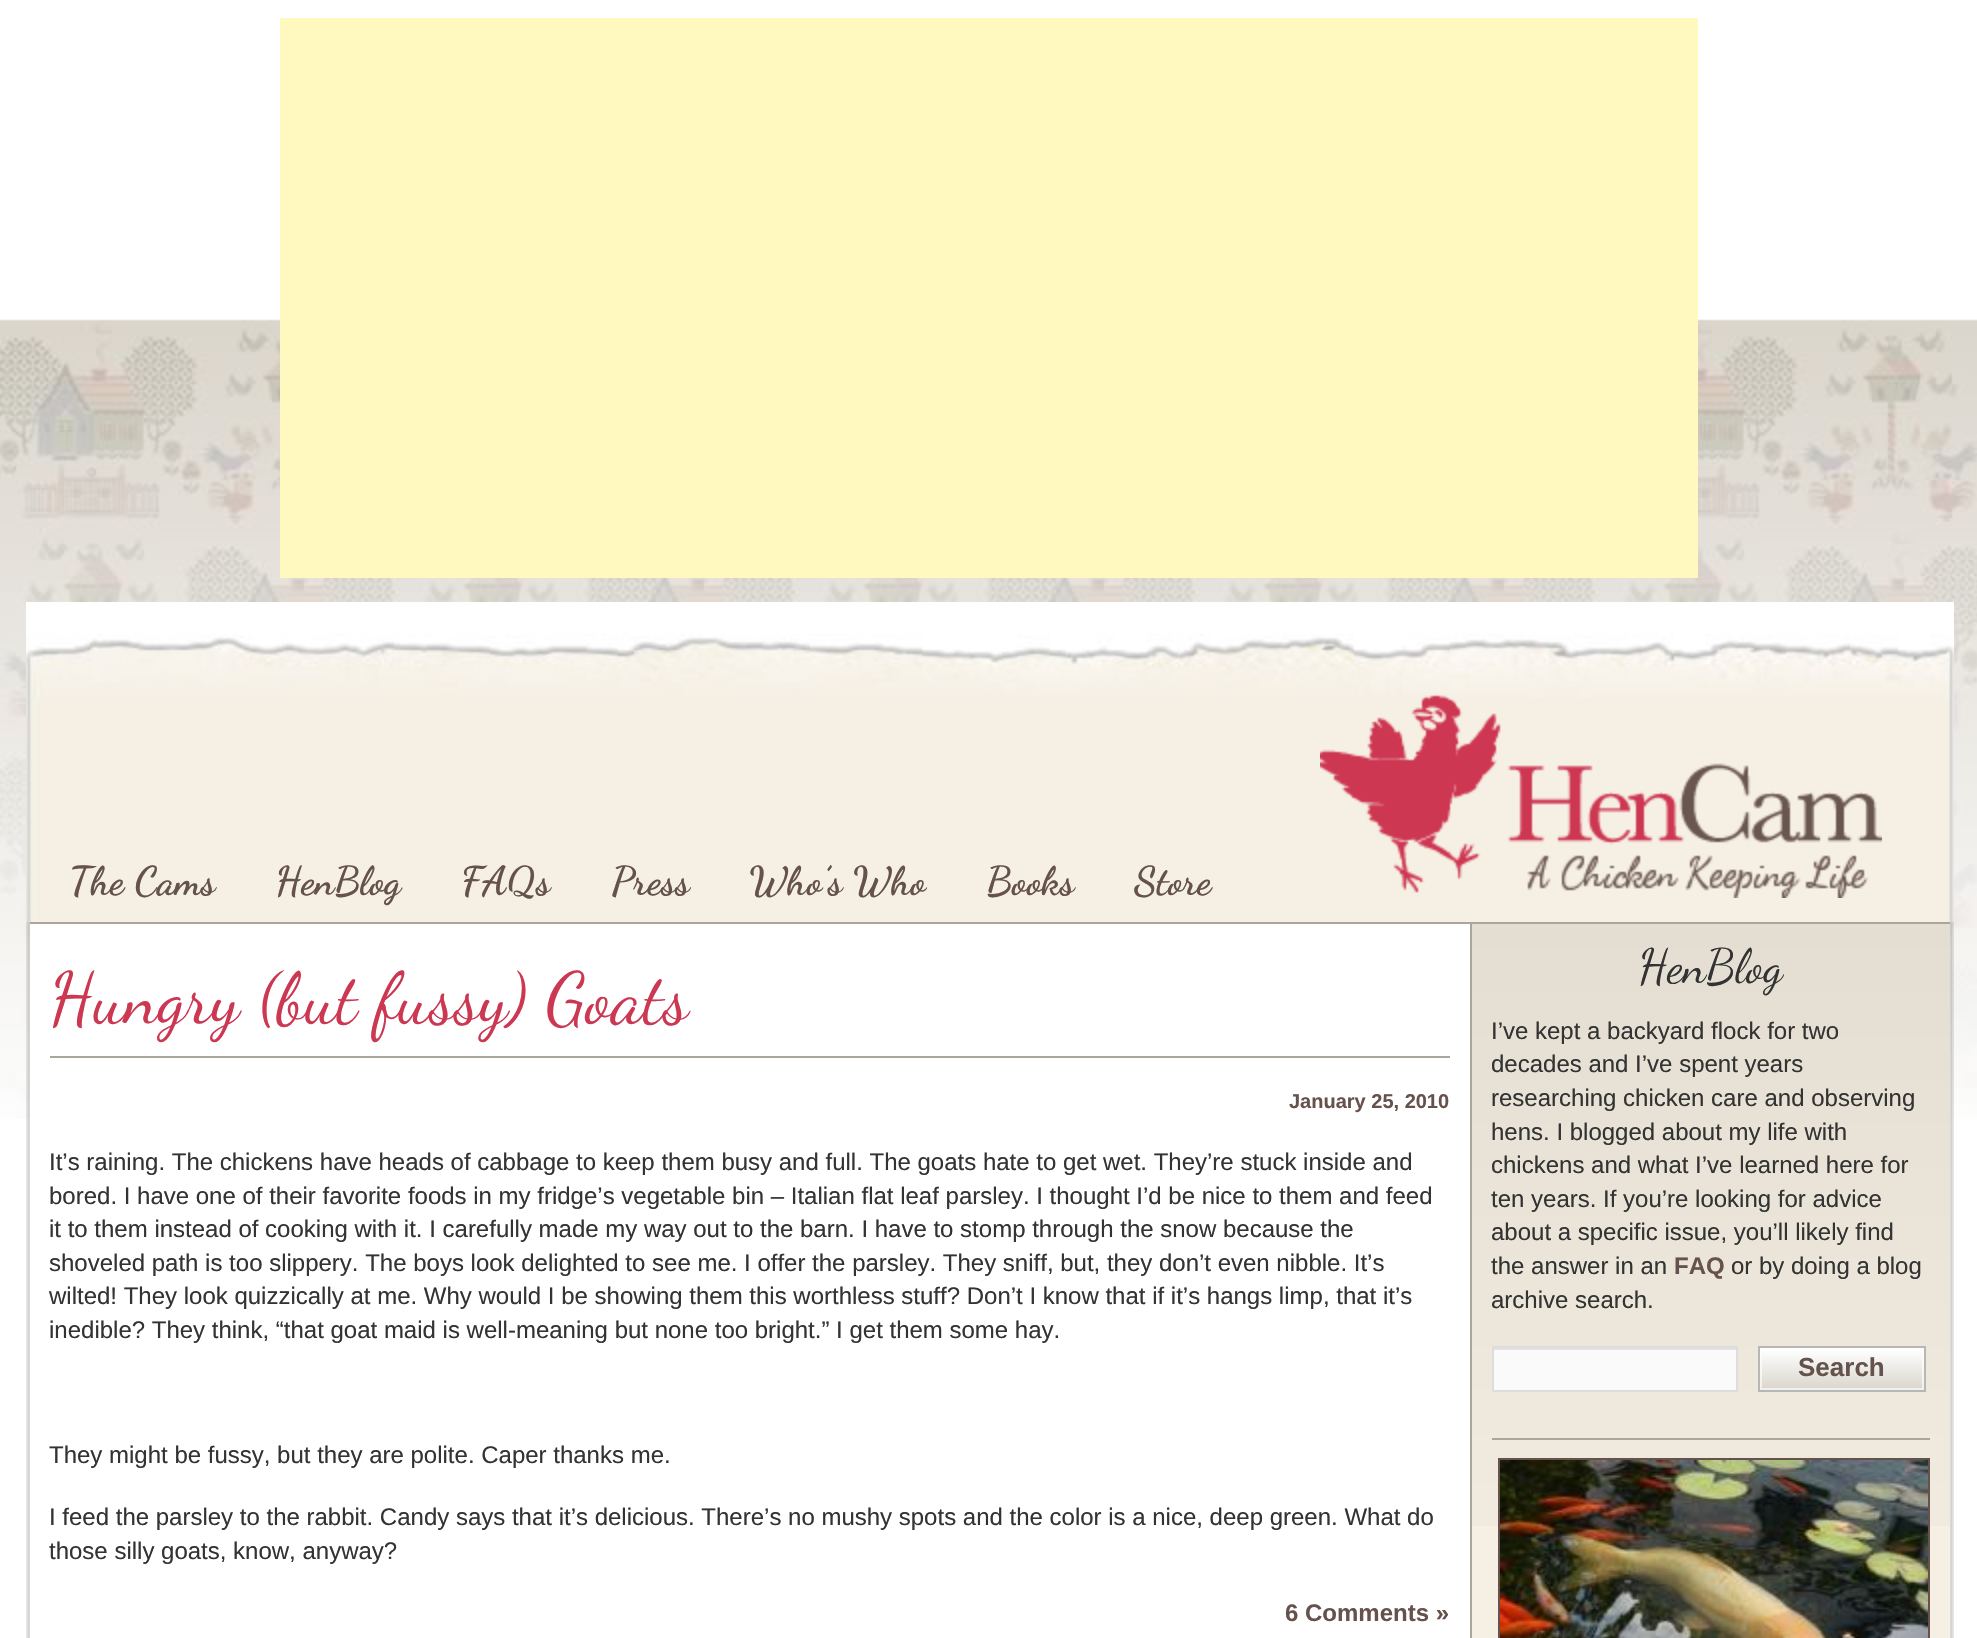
void draw(SkCanvas* canvas) {
    SkPaint paint;
    paint.setAntiAlias(true);
    canvas->clear(0xFFFFFFFF);
    canvas->drawImageRect(SkImages::DeferredFromEncodedData(SkData::MakeFromFileName("img1.png")), SkRect::MakeXYWH(0, 319, 1977, 800), SkSamplingOptions());
    paint.setColor(0xFFFFF9C0);
    canvas->drawRect(SkRect::MakeXYWH(280, 18, 1418, 560), paint);
    canvas->drawImageRect(SkImages::DeferredFromEncodedData(SkData::MakeFromFileName("img2.png")), SkRect::MakeXYWH(26, 922, 1928, 716), SkSamplingOptions());
    canvas->drawImageRect(SkImages::DeferredFromEncodedData(SkData::MakeFromFileName("img3.png")), SkRect::MakeXYWH(26, 602, 1928, 320), SkSamplingOptions());
    SkFont font1(fontMgr->matchFamilyStyle("Dancing Script", SkFontStyle::Bold()), 40);
    font1.setSubpixel(true);
    paint.setColor(0xFF66524C);
    canvas->drawString("The Cams", 69, 894, font1, paint);
    canvas->drawString("HenBlog", 275, 894, font1, paint);
    canvas->drawString("FAQs", 461, 894, font1, paint);
    canvas->drawString("Press", 611, 894, font1, paint);
    canvas->drawString("Who’s Who", 749, 894, font1, paint);
    canvas->drawString("Books", 986, 894, font1, paint);
    canvas->drawString("Store", 1134, 894, font1, paint);
    canvas->drawImageRect(SkImages::DeferredFromEncodedData(SkData::MakeFromFileName("img4.png")), SkRect::MakeXYWH(1320, 694, 562, 204), SkSamplingOptions());
    paint.setColor(0xFFF5F0E3);
    canvas->drawRect(SkRect::MakeXYWH(1472, 1526, 478, 112), paint);
    canvas->drawImageRect(SkImages::DeferredFromEncodedData(SkData::MakeFromFileName("img5.png")), SkRect::MakeXYWH(1472, 924, 478, 602), SkSamplingOptions());
    paint.setColor(0xFFABA69D);
    canvas->drawRect(SkRect::MakeXYWH(30, 922, 1920, 2), paint);
    paint.setColor(0xFFFFFFFF);
    canvas->drawRect(SkRect::MakeXYWH(30, 924, 1440, 714), paint);
    paint.setColor(0xFFABA69D);
    canvas->drawRect(SkRect::MakeXYWH(50, 1056, 1400, 2), paint);
    SkFont font2(fontMgr->matchFamilyStyle("Dancing Script", SkFontStyle::Normal()), 72);
    font2.setSubpixel(true);
    paint.setColor(0xFFCC3752);
    canvas->drawString("Hungry (but fussy) Goats", 49, 1022, font2, paint);
    SkFont font3(fontMgr->matchFamilyStyle("Liberation Sans", SkFontStyle::Bold()), 20);
    font3.setSubpixel(true);
    paint.setColor(0xFF66524C);
    canvas->drawString("January 25, 2010", 1289, 1108, font3, paint);
    SkFont font4(fontMgr->matchFamilyStyle("Liberation Sans", SkFontStyle::Normal()), 24);
    font4.setSubpixel(true);
    paint.setColor(0xFF333333);
    canvas->drawString("It’s raining. The chickens have heads of cabbage to keep them busy and full. The goats hate to get wet. They’re stuck inside and", 49, 1170, font4, paint);
    canvas->drawString("bored. I have one of their favorite foods in my fridge’s vegetable bin – Italian flat leaf parsley. I thought I’d be nice to them and feed", 49, 1204, font4, paint);
    canvas->drawString("it to them instead of cooking with it. I carefully made my way out to the barn. I have to stomp through the snow because the", 49, 1237, font4, paint);
    canvas->drawString("shoveled path is too slippery. The boys look delighted to see me. I offer the parsley. They sniff, but, they don’t even nibble. It’s", 49, 1271, font4, paint);
    canvas->drawString("wilted! They look quizzically at me. Why would I be showing them this worthless stuff? Don’t I know that if it’s hangs limp, that it’s", 49, 1304, font4, paint);
    canvas->drawString("inedible? They think, “that goat maid is well-meaning but none too bright.” I get them some hay.", 49, 1338, font4, paint);
    canvas->drawString("They might be fussy, but they are polite. Caper thanks me.", 49, 1463, font4, paint);
    canvas->drawString("I feed the parsley to the rabbit. Candy says that it’s delicious. There’s no mushy spots and the color is a nice, deep green. What do", 49, 1525, font4, paint);
    canvas->drawString("those silly goats, know, anyway?", 49, 1559, font4, paint);
    SkFont font5(fontMgr->matchFamilyStyle("Liberation Sans", SkFontStyle::Bold()), 24);
    font5.setSubpixel(true);
    paint.setColor(0xFF66524C);
    canvas->drawString("6 Comments »", 1285, 1621, font5, paint);
    paint.setColor(0xFFABA69D);
    canvas->drawRect(SkRect::MakeXYWH(1470, 924, 2, 714), paint);
    SkFont font6(fontMgr->matchFamilyStyle("Dancing Script", SkFontStyle::Normal()), 48);
    font6.setSubpixel(true);
    paint.setColor(0xFF333333);
    canvas->drawString("HenBlog", 1638, 982, font6, paint);
    canvas->drawString("I’ve kept a backyard flock for two", 1491, 1039, font4, paint);
    canvas->drawString("decades and I’ve spent years", 1491, 1072, font4, paint);
    canvas->drawString("researching chicken care and observing", 1491, 1106, font4, paint);
    canvas->drawString("hens. I blogged about my life with", 1491, 1140, font4, paint);
    canvas->drawString("chickens and what I’ve learned here for", 1491, 1173, font4, paint);
    canvas->drawString("ten years. If you’re looking for advice", 1491, 1207, font4, paint);
    canvas->drawString("about a specific issue, you’ll likely find", 1491, 1240, font4, paint);
    canvas->drawString("the answer in an", 1491, 1274, font4, paint);
    paint.setColor(0xFF66524C);
    canvas->drawString("FAQ", 1674, 1274, font5, paint);
    paint.setColor(0xFF333333);
    canvas->drawString("or by doing a blog", 1731, 1274, font4, paint);
    canvas->drawString("archive search.", 1491, 1308, font4, paint);
    paint.setColor(0xFFFAFAFA);
    canvas->drawRect(SkRect::MakeXYWH(1494, 1350, 242, 40), paint);
    paint.setColor(0xFFE1E1E1);
    canvas->drawRect(SkRect::MakeXYWH(1494, 1348, 242, 2), paint);
    paint.setStyle(SkPaint::kStroke_Style);
    paint.setStrokeWidth(2);
    paint.setColor(0xFFDDDDDD);
    canvas->drawRect(SkRect::MakeXYWH(1493, 1347, 244, 44), paint);
    paint.setStyle(SkPaint::kFill_Style);
    {
        const SkColor colors[] = {0xFFFFFFFF, 0xFFF2F0ED};
        const float stops[] = {0, 1};
        const SkPoint ends[] = {{1842, 1348}, {1842, 1390}};
        paint.setShader(SkGradientShader::MakeLinear(ends, colors, stops, 2, SkTileMode::kClamp));
        paint.setAlpha(255);
    }
    canvas->drawRect(SkRect::MakeXYWH(1760, 1348, 164, 42), paint);
    paint.setStyle(SkPaint::kStroke_Style);
    paint.setShader(nullptr);
    paint.setColor(0xFFB7B7B7);
    canvas->drawRect(SkRect::MakeXYWH(1759, 1347, 166, 44), paint);
    paint.setStyle(SkPaint::kFill_Style);
    {
        const SkColor colors[] = {0xFFFDFDFD, 0xFFDCD7CF};
        const float stops[] = {0, 1};
        const SkPoint ends[] = {{1842, 1350}, {1842, 1388}};
        paint.setShader(SkGradientShader::MakeLinear(ends, colors, stops, 2, SkTileMode::kClamp));
        paint.setAlpha(255);
    }
    canvas->drawRect(SkRect::MakeXYWH(1762, 1351, 160, 37), paint);
    SkFont font7(fontMgr->matchFamilyStyle("Liberation Sans", SkFontStyle::Bold()), 26);
    font7.setSubpixel(true);
    paint.setShader(nullptr);
    paint.setColor(0xFF66524C);
    canvas->drawString("Search", 1798, 1376, font7, paint);
    paint.setColor(0xFFABA69D);
    canvas->drawRect(SkRect::MakeXYWH(1492, 1438, 438, 2), paint);
    paint.setStyle(SkPaint::kStroke_Style);
    paint.setColor(0xFF66524C);
    canvas->drawRect(SkRect::MakeXYWH(1499, 1459, 430, 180), paint);
    canvas->drawImageRect(SkImages::DeferredFromEncodedData(SkData::MakeFromFileName("img6.png")), SkRect::MakeXYWH(1500, 1460, 428, 178), SkSamplingOptions());
}
